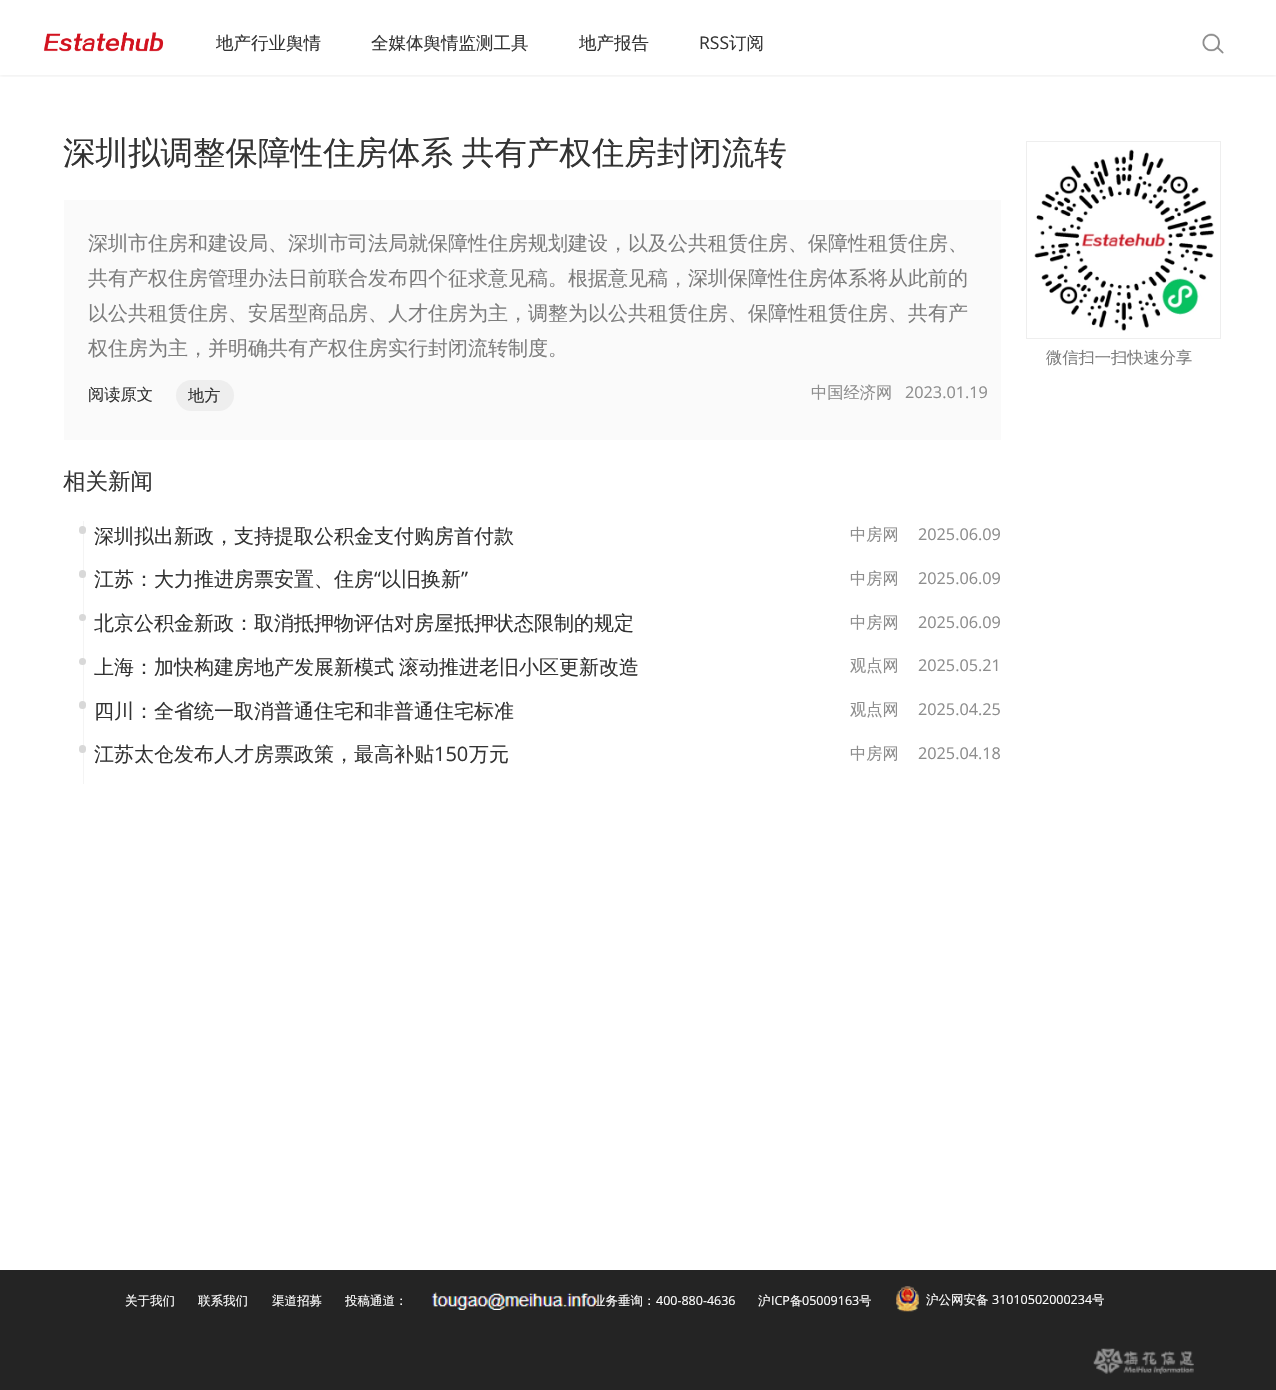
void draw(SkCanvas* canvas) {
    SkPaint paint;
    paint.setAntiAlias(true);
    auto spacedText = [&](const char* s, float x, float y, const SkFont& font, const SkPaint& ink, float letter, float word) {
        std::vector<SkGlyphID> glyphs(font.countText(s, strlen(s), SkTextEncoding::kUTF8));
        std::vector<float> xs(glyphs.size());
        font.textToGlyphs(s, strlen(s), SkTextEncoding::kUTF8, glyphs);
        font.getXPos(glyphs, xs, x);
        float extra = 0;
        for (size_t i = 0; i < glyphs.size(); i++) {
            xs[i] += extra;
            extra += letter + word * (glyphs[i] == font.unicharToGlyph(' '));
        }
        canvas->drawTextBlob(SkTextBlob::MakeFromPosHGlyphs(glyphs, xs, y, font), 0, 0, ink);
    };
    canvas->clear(0xFFFFFFFF);
    canvas->save();
    canvas->clipRect(SkRect::MakeXYWH(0, 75, 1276, 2));
    paint.setColor(0x12000000);
    paint.setMaskFilter(SkMaskFilter::MakeBlur(kNormal_SkBlurStyle, 2));
    canvas->drawRect(SkRect::MakeXYWH(0, 1, 1276, 75), paint);
    paint.setMaskFilter(nullptr);
    canvas->restore();
    canvas->drawImageRect(SkImages::DeferredFromEncodedData(SkData::MakeFromFileName("img1.png")), SkRect::MakeXYWH(43, 32, 121, 20), SkSamplingOptions());
    SkFont font1(fontMgr->matchFamilyStyle("WenQuanYi Zen Hei", SkFontStyle(500, SkFontStyle::kNormal_Width, SkFontStyle::kUpright_Slant)), 17.5f);
    font1.setSubpixel(true);
    paint.setColor(0xFF333333);
    canvas->drawString("地产行业舆情", 216, 49, font1, paint);
    canvas->drawString("全媒体舆情监测工具", 371, 49, font1, paint);
    canvas->drawString("地产报告", 579, 49, font1, paint);
    SkFont font2(fontMgr->matchFamilyStyle("Open Sans", SkFontStyle::Normal()), 17.5f);
    font2.setSubpixel(true);
    canvas->drawString("RSS", 699, 49, font2, paint);
    canvas->drawString("订阅", 729, 49, font1, paint);
    canvas->drawImageRect(SkImages::DeferredFromEncodedData(SkData::MakeFromFileName("img2.png")), SkRect::MakeXYWH(1202, 33, 22, 21), SkSamplingOptions());
    SkFont font3(fontMgr->matchFamilyStyle("WenQuanYi Zen Hei", SkFontStyle(500, SkFontStyle::kNormal_Width, SkFontStyle::kUpright_Slant)), 32.5f);
    font3.setSubpixel(true);
    spacedText("深圳拟调整保障性住房体系 共有产权住房封闭流转", 63, 164, font3, paint, 0, -1);
    paint.setColor(0xFFFAFAFA);
    canvas->drawRect(SkRect::MakeXYWH(64, 200, 937, 240), paint);
    SkFont font4(fontMgr->matchFamilyStyle("WenQuanYi Zen Hei", SkFontStyle(500, SkFontStyle::kNormal_Width, SkFontStyle::kUpright_Slant)), 20);
    font4.setSubpixel(true);
    paint.setColor(0xFF7D7D7D);
    canvas->drawString("深圳市住房和建设局、深圳市司法局就保障性住房规划建设，以及公共租赁住房、保障性租赁住房、", 88, 250, font4, paint);
    canvas->drawString("共有产权住房管理办法日前联合发布四个征求意见稿。根据意见稿，深圳保障性住房体系将从此前的", 88, 285, font4, paint);
    canvas->drawString("以公共租赁住房、安居型商品房、人才住房为主，调整为以公共租赁住房、保障性租赁住房、共有产", 88, 320, font4, paint);
    canvas->drawString("权住房为主，并明确共有产权住房实行封闭流转制度。", 88, 355, font4, paint);
    SkFont font5(fontMgr->matchFamilyStyle("WenQuanYi Zen Hei", SkFontStyle(500, SkFontStyle::kNormal_Width, SkFontStyle::kUpright_Slant)), 16.25f);
    font5.setSubpixel(true);
    paint.setColor(0xFF333333);
    canvas->drawString("阅读原文", 88, 400, font5, paint);
    paint.setColor(0xFFEEEEEE);
    canvas->drawRoundRect(SkRect::MakeXYWH(176, 380, 58, 31), 15.5f, 15.5f, paint);
    paint.setColor(0xFF333333);
    canvas->drawString("地方", 188, 401, font5, paint);
    paint.setColor(0xFF8D8D8D);
    canvas->drawString("中国经济网", 811, 398, font5, paint);
    SkFont font6(fontMgr->matchFamilyStyle("Open Sans", SkFontStyle::Normal()), 16.25f);
    font6.setSubpixel(true);
    canvas->drawString("2023.01.19", 905, 398, font6, paint);
    paint.setStyle(SkPaint::kStroke_Style);
    paint.setStrokeWidth(1);
    paint.setColor(0xFFEEEEEE);
    canvas->drawRect(SkRect::MakeXYWH(1026.5f, 141.5f, 194, 197), paint);
    canvas->drawImageRect(SkImages::DeferredFromEncodedData(SkData::MakeFromFileName("img3.png")), SkRect::MakeXYWH(1034, 149, 180, 182), SkSamplingOptions());
    paint.setStyle(SkPaint::kFill_Style);
    paint.setColor(0xFF7D7D7D);
    canvas->drawString("微信扫一扫快速分享", 1046, 363, font5, paint);
    SkFont font7(fontMgr->matchFamilyStyle("WenQuanYi Zen Hei", SkFontStyle(500, SkFontStyle::kNormal_Width, SkFontStyle::kUpright_Slant)), 22.5f);
    font7.setSubpixel(true);
    paint.setColor(0xFF333333);
    canvas->drawString("相关新闻", 63, 489, font7, paint);
    paint.setColor(0xFFF4F4F4);
    canvas->drawRect(SkRect::MakeXYWH(83, 521, 1, 263), paint);
    paint.setColor(0xFFD8D8D8);
    canvas->drawRoundRect(SkRect::MakeXYWH(79, 526, 7, 8), 3.5f, 3.5f, paint);
    paint.setColor(0xFF333333);
    canvas->drawString("深圳拟出新政，支持提取公积金支付购房首付款", 94, 543, font4, paint);
    paint.setColor(0xFF8D8D8D);
    canvas->drawString("中房网", 850, 540, font5, paint);
    canvas->drawString("2025.06.09", 918, 540, font6, paint);
    paint.setColor(0xFFD8D8D8);
    canvas->drawRoundRect(SkRect::MakeXYWH(79, 570, 7, 8), 3.5f, 3.5f, paint);
    paint.setColor(0xFF333333);
    canvas->drawString("江苏：大力推进房票安置、住房", 94, 586, font4, paint);
    SkFont font8(fontMgr->matchFamilyStyle("Open Sans", SkFontStyle::Normal()), 20);
    font8.setSubpixel(true);
    canvas->drawString("“", 374, 586, font8, paint);
    canvas->drawString("以旧换新", 381, 586, font4, paint);
    canvas->drawString("”", 461, 586, font8, paint);
    paint.setColor(0xFF8D8D8D);
    canvas->drawString("中房网", 850, 584, font5, paint);
    canvas->drawString("2025.06.09", 918, 584, font6, paint);
    paint.setColor(0xFFD8D8D8);
    canvas->drawCircle(82.5f, 617.5f, 3.5f, paint);
    paint.setColor(0xFF333333);
    canvas->drawString("北京公积金新政：取消抵押物评估对房屋抵押状态限制的规定", 94, 630, font4, paint);
    paint.setColor(0xFF8D8D8D);
    canvas->drawString("中房网", 850, 628, font5, paint);
    canvas->drawString("2025.06.09", 918, 628, font6, paint);
    paint.setColor(0xFFD8D8D8);
    canvas->drawCircle(82.5f, 661.5f, 3.5f, paint);
    paint.setColor(0xFF333333);
    spacedText("上海：加快构建房地产发展新模式 滚动推进老旧小区更新改造", 94, 674, font4, paint, 0, -1);
    paint.setColor(0xFF8D8D8D);
    canvas->drawString("观点网", 850, 671, font5, paint);
    canvas->drawString("2025.05.21", 918, 671, font6, paint);
    paint.setColor(0xFFD8D8D8);
    canvas->drawRoundRect(SkRect::MakeXYWH(79, 701, 7, 8), 3.5f, 3.5f, paint);
    paint.setColor(0xFF333333);
    canvas->drawString("四川：全省统一取消普通住宅和非普通住宅标准", 94, 718, font4, paint);
    paint.setColor(0xFF8D8D8D);
    canvas->drawString("观点网", 850, 715, font5, paint);
    canvas->drawString("2025.04.25", 918, 715, font6, paint);
    paint.setColor(0xFFD8D8D8);
    canvas->drawRoundRect(SkRect::MakeXYWH(79, 745, 7, 8), 3.5f, 3.5f, paint);
    paint.setColor(0xFF333333);
    canvas->drawString("江苏太仓发布人才房票政策，最高补贴", 94, 761, font4, paint);
    canvas->drawString("150", 434, 761, font8, paint);
    canvas->drawString("万元", 469, 761, font4, paint);
    paint.setColor(0xFF8D8D8D);
    canvas->drawString("中房网", 850, 759, font5, paint);
    canvas->drawString("2025.04.18", 918, 759, font6, paint);
    paint.setColor(0xFF242424);
    canvas->drawRect(SkRect::MakeXYWH(0, 1270, 1276, 120), paint);
    SkFont font9(fontMgr->matchFamilyStyle("WenQuanYi Zen Hei", SkFontStyle(500, SkFontStyle::kNormal_Width, SkFontStyle::kUpright_Slant)), 12.5f);
    font9.setSubpixel(true);
    paint.setColor(0xFFFFFFFF);
    canvas->drawString("关于我们", 125, 1305, font9, paint);
    canvas->drawString("联系我们", 198, 1305, font9, paint);
    canvas->drawString("渠道招募", 272, 1305, font9, paint);
    canvas->drawString("投稿通道：", 345, 1305, font9, paint);
    canvas->drawString("业务垂询：", 593, 1305, font9, paint);
    canvas->drawImageRect(SkImages::DeferredFromEncodedData(SkData::MakeFromFileName("img4.png")), SkRect::MakeXYWH(431, 1292, 166, 18), SkSamplingOptions());
    SkFont font10(fontMgr->matchFamilyStyle("Open Sans", SkFontStyle::Normal()), 12.5f);
    font10.setSubpixel(true);
    canvas->drawString("400-880-4636", 656, 1305, font10, paint);
    canvas->drawString("沪", 758, 1305, font9, paint);
    canvas->drawString("ICP", 771, 1305, font10, paint);
    canvas->drawString("备", 790, 1305, font9, paint);
    canvas->drawString("05009163", 802, 1305, font10, paint);
    canvas->drawString("号", 859, 1305, font9, paint);
    canvas->drawImageRect(SkImages::DeferredFromEncodedData(SkData::MakeFromFileName("img5.png")), SkRect::MakeXYWH(896, 1286, 23, 26), SkSamplingOptions());
    canvas->drawString("沪公网安备", 926, 1304, font9, paint);
    canvas->drawString("31010502000234", 992, 1304, font10, paint);
    canvas->drawString("号", 1092, 1304, font9, paint);
    canvas->drawImageRect(SkImages::DeferredFromEncodedData(SkData::MakeFromFileName("img6.png")), SkRect::MakeXYWH(1093, 1348, 101, 26), SkSamplingOptions());
}
